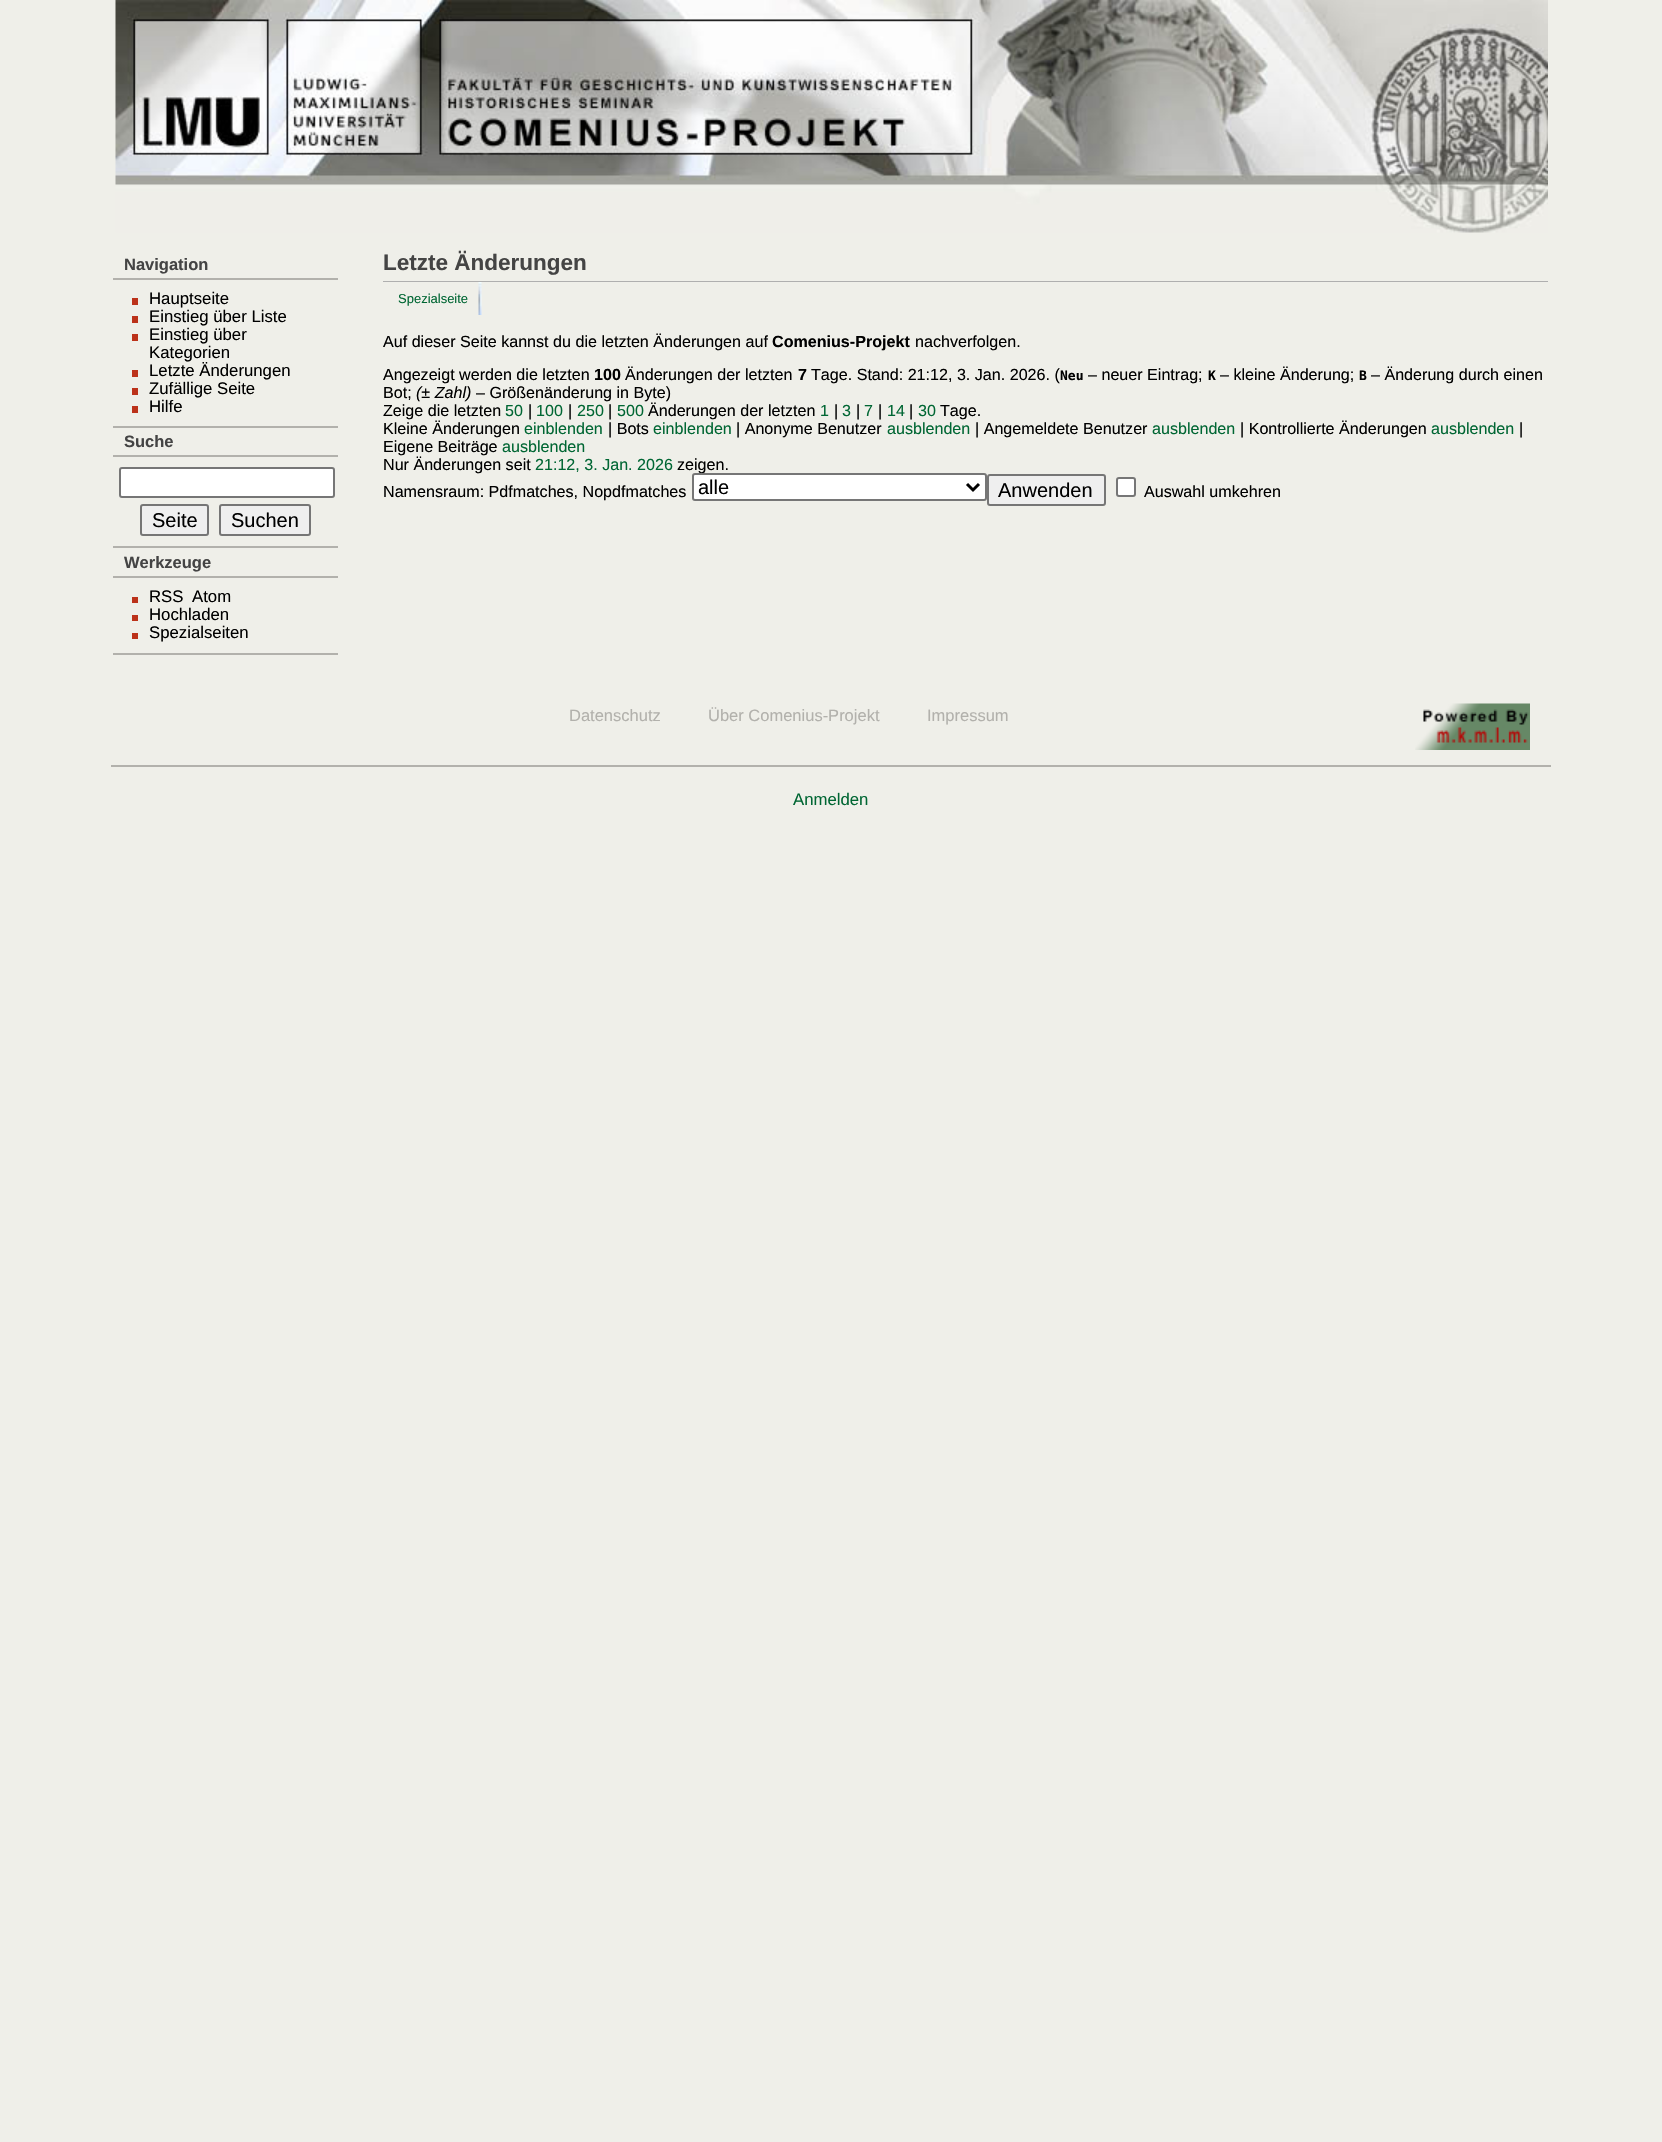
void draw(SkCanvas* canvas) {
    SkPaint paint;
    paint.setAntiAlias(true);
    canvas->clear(0xFFEFEFE9);
    canvas->drawImageRect(SkImages::DeferredFromEncodedData(SkData::MakeFromFileName("img1.png")), SkRect::MakeXYWH(115, 0, 1433, 233), SkSamplingOptions());
    paint.setColor(0xFFB2B1AC);
    canvas->drawRect(SkRect::MakeXYWH(113, 426, 225, 2), paint);
    canvas->drawRect(SkRect::MakeXYWH(113, 278, 225, 2), paint);
    SkFont font1(fontMgr->matchFamilyStyle("Liberation Sans", SkFontStyle::Bold()), 16.5f);
    font1.setSubpixel(true);
    paint.setColor(0xFF444444);
    canvas->drawString("Navigation", 124, 270, font1, paint);
    paint.setColor(0xFFBC321A);
    canvas->drawRect(SkRect::MakeXYWH(132, 298, 6, 7), paint);
    SkFont font2(fontMgr->matchFamilyStyle("Liberation Sans", SkFontStyle::Normal()), 16.75f);
    font2.setSubpixel(true);
    paint.setColor(0xFF000000);
    canvas->drawString("Hauptseite", 149, 304, font2, paint);
    paint.setColor(0xFFBC321A);
    canvas->drawRect(SkRect::MakeXYWH(132, 316, 6, 7), paint);
    paint.setColor(0xFF000000);
    canvas->drawString("Einstieg über Liste", 149, 322, font2, paint);
    paint.setColor(0xFFBC321A);
    canvas->drawRect(SkRect::MakeXYWH(132, 334, 6, 7), paint);
    paint.setColor(0xFF000000);
    canvas->drawString("Einstieg über", 149, 340, font2, paint);
    canvas->drawString("Kategorien", 149, 358, font2, paint);
    paint.setColor(0xFFBC321A);
    canvas->drawRect(SkRect::MakeXYWH(132, 370, 6, 7), paint);
    paint.setColor(0xFF000000);
    canvas->drawString("Letzte Änderungen", 149, 376, font2, paint);
    paint.setColor(0xFFBC321A);
    canvas->drawRect(SkRect::MakeXYWH(132, 388, 6, 7), paint);
    paint.setColor(0xFF000000);
    canvas->drawString("Zufällige Seite", 149, 394, font2, paint);
    paint.setColor(0xFFBC321A);
    canvas->drawRect(SkRect::MakeXYWH(132, 406, 6, 7), paint);
    paint.setColor(0xFF000000);
    canvas->drawString("Hilfe", 149, 412, font2, paint);
    paint.setColor(0xFFB2B1AC);
    canvas->drawRect(SkRect::MakeXYWH(113, 546, 225, 2), paint);
    canvas->drawRect(SkRect::MakeXYWH(113, 455, 225, 2), paint);
    paint.setColor(0xFF444444);
    canvas->drawString("Suche", 124, 447, font1, paint);
    paint.setColor(0xFFFFFFFF);
    canvas->drawRoundRect(SkRect::MakeXYWH(120, 468, 214, 29), 2, 2, paint);
    paint.setStyle(SkPaint::kStroke_Style);
    paint.setStrokeWidth(2);
    paint.setColor(0xFF767676);
    canvas->drawRoundRect(SkRect::MakeXYWH(120, 468, 214, 29), 2, 2, paint);
    paint.setStyle(SkPaint::kFill_Style);
    paint.setColor(0xFFEFEFEF);
    canvas->drawRoundRect(SkRect::MakeXYWH(141, 505, 67, 30), 2, 2, paint);
    paint.setStyle(SkPaint::kStroke_Style);
    paint.setColor(0xFF767676);
    canvas->drawRoundRect(SkRect::MakeXYWH(141, 505, 67, 30), 2, 2, paint);
    SkFont font3(fontMgr->matchFamilyStyle("Liberation Sans", SkFontStyle::Normal()), 20);
    font3.setSubpixel(true);
    paint.setStyle(SkPaint::kFill_Style);
    paint.setColor(0xFF000000);
    canvas->drawString("Seite", 152, 527, font3, paint);
    paint.setColor(0xFFEFEFEF);
    canvas->drawRoundRect(SkRect::MakeXYWH(220, 505, 90, 30), 2, 2, paint);
    paint.setStyle(SkPaint::kStroke_Style);
    paint.setColor(0xFF767676);
    canvas->drawRoundRect(SkRect::MakeXYWH(220, 505, 90, 30), 2, 2, paint);
    paint.setStyle(SkPaint::kFill_Style);
    paint.setColor(0xFF000000);
    canvas->drawString("Suchen", 231, 527, font3, paint);
    paint.setColor(0xFFB2B1AC);
    canvas->drawRect(SkRect::MakeXYWH(113, 653, 225, 2), paint);
    canvas->drawRect(SkRect::MakeXYWH(113, 576, 225, 2), paint);
    paint.setColor(0xFF444444);
    canvas->drawString("Werkzeuge", 124, 568, font1, paint);
    paint.setColor(0xFFBC321A);
    canvas->drawRect(SkRect::MakeXYWH(132, 597, 6, 6), paint);
    paint.setColor(0xFF000000);
    canvas->drawString("RSS", 149, 602, font2, paint);
    canvas->drawString("Atom", 192, 602, font2, paint);
    paint.setColor(0xFFBC321A);
    canvas->drawRect(SkRect::MakeXYWH(132, 615, 6, 6), paint);
    paint.setColor(0xFF000000);
    canvas->drawString("Hochladen", 149, 620, font2, paint);
    paint.setColor(0xFFBC321A);
    canvas->drawRect(SkRect::MakeXYWH(132, 633, 6, 6), paint);
    paint.setColor(0xFF000000);
    canvas->drawString("Spezialseiten", 149, 638, font2, paint);
    paint.setColor(0xFFAFAFAF);
    canvas->drawRect(SkRect::MakeXYWH(383, 281, 1165, 1), paint);
    SkFont font4(fontMgr->matchFamilyStyle("Liberation Sans", SkFontStyle::Bold()), 22.5f);
    font4.setSubpixel(true);
    paint.setColor(0xFF444444);
    canvas->drawString("Letzte Änderungen", 383, 270, font4, paint);
    canvas->drawImageRect(SkImages::DeferredFromEncodedData(SkData::MakeFromFileName("img2.png")), SkRect::MakeXYWH(478, 282, 4, 33), SkSamplingOptions());
    SkFont font5(fontMgr->matchFamilyStyle("Liberation Sans", SkFontStyle::Normal()), 13);
    font5.setSubpixel(true);
    paint.setColor(0xFF006633);
    canvas->drawString("Spezialseite", 398, 303, font5, paint);
    SkFont font6(fontMgr->matchFamilyStyle("Liberation Sans", SkFontStyle::Normal()), 16.1f);
    font6.setSubpixel(true);
    paint.setColor(0xFF000000);
    canvas->drawString("Auf dieser Seite kannst du die letzten Änderungen auf", 383, 347, font6, paint);
    SkFont font7(fontMgr->matchFamilyStyle("Liberation Sans", SkFontStyle::Bold()), 16.1f);
    font7.setSubpixel(true);
    canvas->drawString("Comenius-Projekt", 772, 347, font7, paint);
    canvas->drawString("nachverfolgen.", 915, 347, font6, paint);
    canvas->drawString("Angezeigt werden die letzten", 383, 380, font6, paint);
    canvas->drawString("100", 594, 380, font7, paint);
    canvas->drawString("Änderungen der letzten", 625, 380, font6, paint);
    canvas->drawString("7", 798, 380, font7, paint);
    canvas->drawString("Tage. Stand: 21:12, 3. Jan. 2026. (", 811, 380, font6, paint);
    SkFont font8(fontMgr->matchFamilyStyle("DejaVu Sans Mono", SkFontStyle::Bold()), 13);
    font8.setSubpixel(true);
    canvas->drawString("Neu", 1060, 380, font8, paint);
    canvas->drawString("– neuer Eintrag;", 1088, 380, font6, paint);
    canvas->drawString("K", 1208, 380, font8, paint);
    canvas->drawString("– kleine Änderung;", 1220, 380, font6, paint);
    canvas->drawString("B", 1359, 380, font8, paint);
    canvas->drawString("– Änderung durch einen", 1371, 380, font6, paint);
    canvas->drawString("Bot;", 383, 398, font6, paint);
    SkFont font9(fontMgr->matchFamilyStyle("Liberation Sans", SkFontStyle::Italic()), 16.1f);
    font9.setSubpixel(true);
    canvas->drawString("(± Zahl)", 416, 398, font9, paint);
    canvas->drawString("– Größenänderung in Byte)", 476, 398, font6, paint);
    canvas->drawString("Zeige die letzten", 383, 416, font6, paint);
    paint.setColor(0xFF006633);
    canvas->drawString("50", 505, 416, font6, paint);
    paint.setColor(0xFF000000);
    canvas->drawString("|", 528, 416, font6, paint);
    paint.setColor(0xFF006633);
    canvas->drawString("100", 536, 416, font6, paint);
    paint.setColor(0xFF000000);
    canvas->drawString("|", 568, 416, font6, paint);
    paint.setColor(0xFF006633);
    canvas->drawString("250", 577, 416, font6, paint);
    paint.setColor(0xFF000000);
    canvas->drawString("|", 608, 416, font6, paint);
    paint.setColor(0xFF006633);
    canvas->drawString("500", 617, 416, font6, paint);
    paint.setColor(0xFF000000);
    canvas->drawString("Änderungen der letzten", 648, 416, font6, paint);
    paint.setColor(0xFF006633);
    canvas->drawString("1", 820, 416, font6, paint);
    paint.setColor(0xFF000000);
    canvas->drawString("|", 834, 416, font6, paint);
    paint.setColor(0xFF006633);
    canvas->drawString("3", 842, 416, font6, paint);
    paint.setColor(0xFF000000);
    canvas->drawString("|", 856, 416, font6, paint);
    paint.setColor(0xFF006633);
    canvas->drawString("7", 864, 416, font6, paint);
    paint.setColor(0xFF000000);
    canvas->drawString("|", 878, 416, font6, paint);
    paint.setColor(0xFF006633);
    canvas->drawString("14", 887, 416, font6, paint);
    paint.setColor(0xFF000000);
    canvas->drawString("|", 909, 416, font6, paint);
    paint.setColor(0xFF006633);
    canvas->drawString("30", 918, 416, font6, paint);
    paint.setColor(0xFF000000);
    canvas->drawString("Tage.", 940, 416, font6, paint);
    canvas->drawString("Kleine Änderungen", 383, 434, font6, paint);
    paint.setColor(0xFF006633);
    canvas->drawString("einblenden", 524, 434, font6, paint);
    paint.setColor(0xFF000000);
    canvas->drawString("| Bots", 608, 434, font6, paint);
    paint.setColor(0xFF006633);
    canvas->drawString("einblenden", 653, 434, font6, paint);
    paint.setColor(0xFF000000);
    canvas->drawString("| Anonyme Benutzer", 736, 434, font6, paint);
    paint.setColor(0xFF006633);
    canvas->drawString("ausblenden", 887, 434, font6, paint);
    paint.setColor(0xFF000000);
    canvas->drawString("| Angemeldete Benutzer", 975, 434, font6, paint);
    paint.setColor(0xFF006633);
    canvas->drawString("ausblenden", 1152, 434, font6, paint);
    paint.setColor(0xFF000000);
    canvas->drawString("| Kontrollierte Änderungen", 1240, 434, font6, paint);
    paint.setColor(0xFF006633);
    canvas->drawString("ausblenden", 1431, 434, font6, paint);
    paint.setColor(0xFF000000);
    canvas->drawString("|", 1519, 434, font6, paint);
    canvas->drawString("Eigene Beiträge", 383, 452, font6, paint);
    paint.setColor(0xFF006633);
    canvas->drawString("ausblenden", 502, 452, font6, paint);
    paint.setColor(0xFF000000);
    canvas->drawString("Nur Änderungen seit", 383, 470, font6, paint);
    paint.setColor(0xFF006633);
    canvas->drawString("21:12, 3. Jan. 2026", 535, 470, font6, paint);
    paint.setColor(0xFF000000);
    canvas->drawString("zeigen.", 677, 470, font6, paint);
    canvas->drawString("Namensraum: Pdfmatches, Nopdfmatches", 383, 497, font6, paint);
    paint.setColor(0xFFFFFFFF);
    canvas->drawRoundRect(SkRect::MakeXYWH(693, 474, 293, 26), 2, 2, paint);
    paint.setStyle(SkPaint::kStroke_Style);
    paint.setColor(0xFF767676);
    canvas->drawRoundRect(SkRect::MakeXYWH(693, 474, 293, 26), 2, 2, paint);
    paint.setStrokeWidth(3);
    paint.setColor(0xFF000000);
    canvas->drawPath(SkPathBuilder().moveTo(967, 484).lineTo(973, 490).lineTo(979, 484).detach(), paint);
    paint.setStyle(SkPaint::kFill_Style);
    canvas->drawString("alle", 698, 494, font3, paint);
    paint.setColor(0xFFEFEFEF);
    canvas->drawRoundRect(SkRect::MakeXYWH(988, 475, 117, 30), 2, 2, paint);
    paint.setStyle(SkPaint::kStroke_Style);
    paint.setStrokeWidth(2);
    paint.setColor(0xFF767676);
    canvas->drawRoundRect(SkRect::MakeXYWH(988, 475, 117, 30), 2, 2, paint);
    paint.setStyle(SkPaint::kFill_Style);
    paint.setColor(0xFF000000);
    canvas->drawString("Anwenden", 998, 497, font3, paint);
    paint.setColor(0xFFFFFFFF);
    canvas->drawRoundRect(SkRect::MakeXYWH(1117, 478, 18, 18), 2, 2, paint);
    paint.setStyle(SkPaint::kStroke_Style);
    paint.setColor(0xFF767676);
    canvas->drawRoundRect(SkRect::MakeXYWH(1117, 478, 18, 18), 2, 2, paint);
    paint.setStyle(SkPaint::kFill_Style);
    paint.setColor(0xFF000000);
    canvas->drawString("Auswahl umkehren", 1144, 497, font6, paint);
    paint.setColor(0xFFB2B1AC);
    canvas->drawRect(SkRect::MakeXYWH(111, 765, 1440, 2), paint);
    SkFont font10(fontMgr->matchFamilyStyle("Liberation Sans", SkFontStyle::Normal()), 16.5f);
    font10.setSubpixel(true);
    canvas->drawString("Datenschutz", 569, 721, font10, paint);
    canvas->drawString("Über Comenius-Projekt", 708, 721, font10, paint);
    canvas->drawString("Impressum", 927, 721, font10, paint);
    canvas->drawImageRect(SkImages::DeferredFromEncodedData(SkData::MakeFromFileName("img3.png")), SkRect::MakeXYWH(1415, 703, 115, 47), SkSamplingOptions());
    paint.setColor(0xFF006633);
    canvas->drawString("Anmelden", 793, 805, font2, paint);
}
